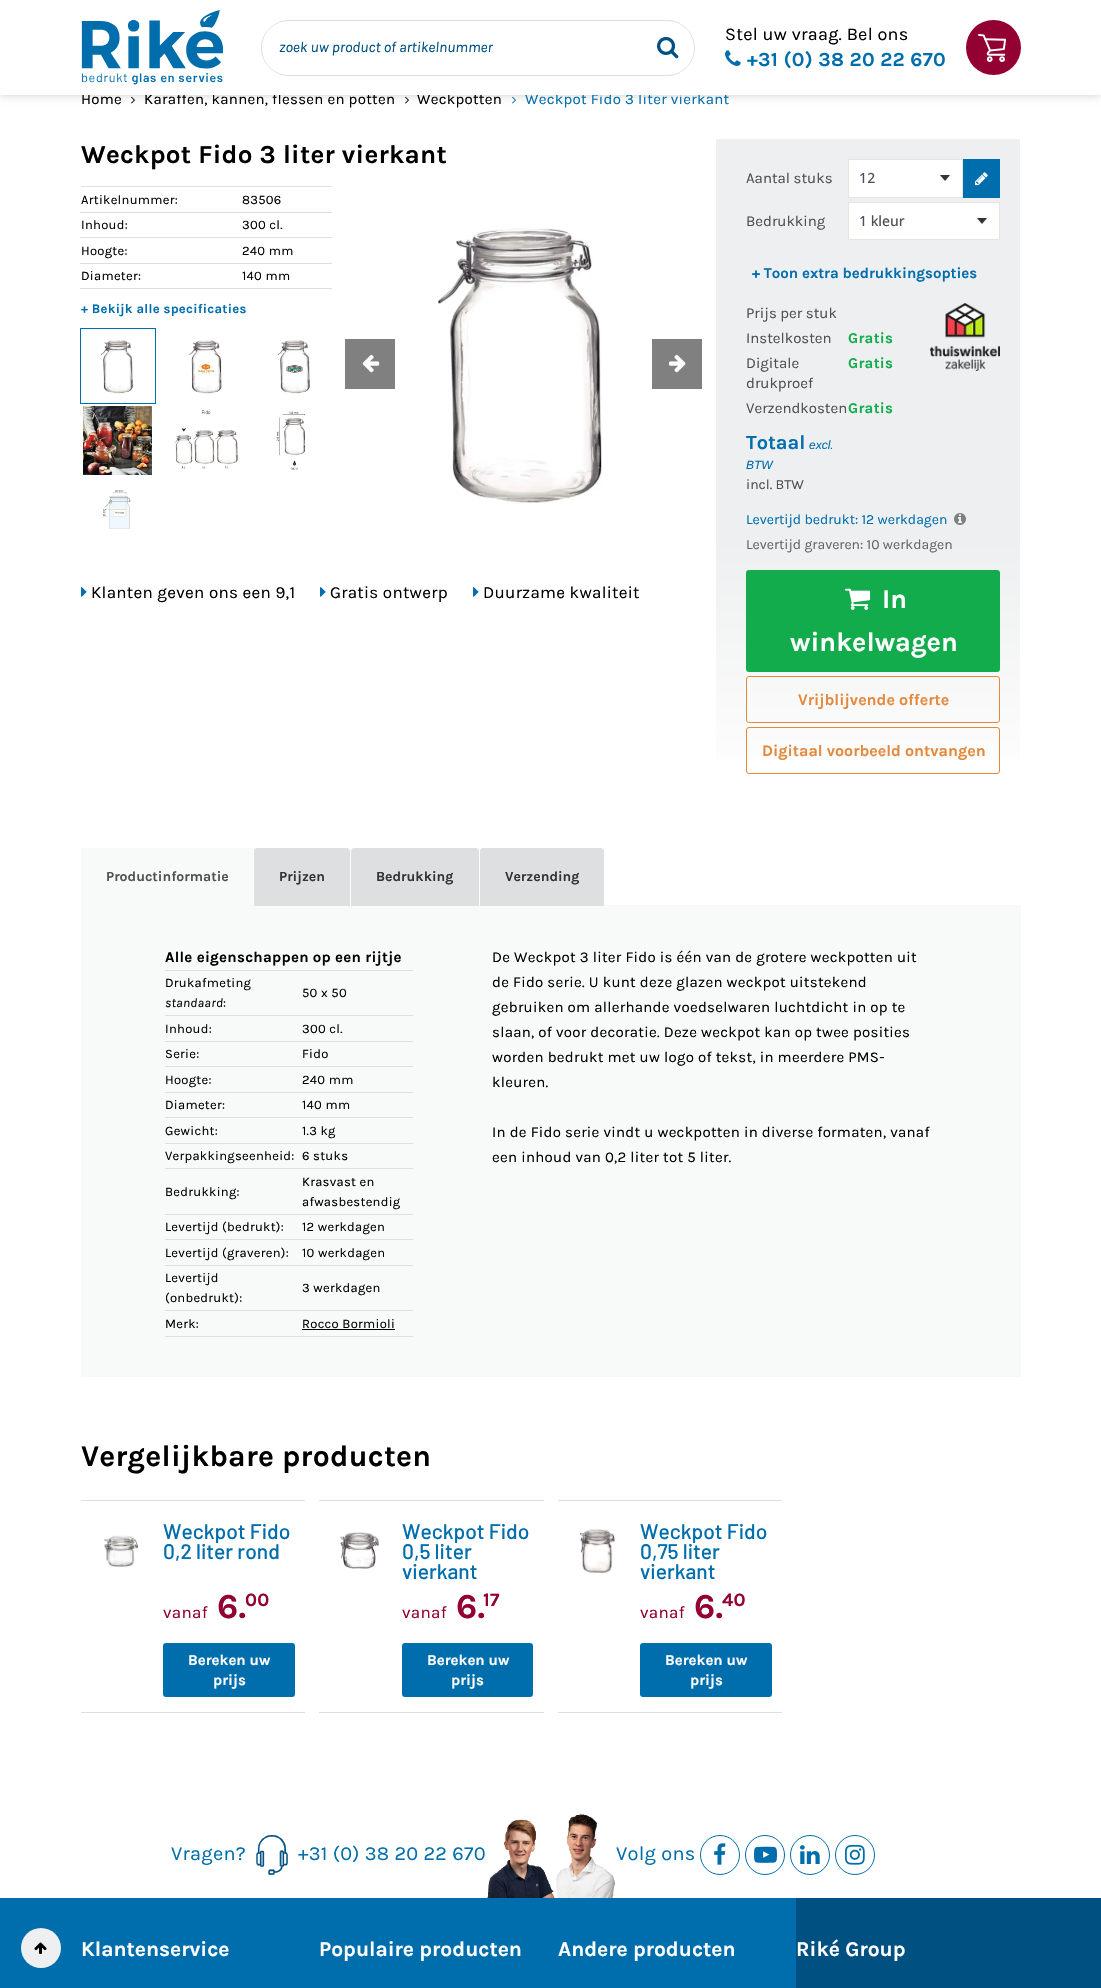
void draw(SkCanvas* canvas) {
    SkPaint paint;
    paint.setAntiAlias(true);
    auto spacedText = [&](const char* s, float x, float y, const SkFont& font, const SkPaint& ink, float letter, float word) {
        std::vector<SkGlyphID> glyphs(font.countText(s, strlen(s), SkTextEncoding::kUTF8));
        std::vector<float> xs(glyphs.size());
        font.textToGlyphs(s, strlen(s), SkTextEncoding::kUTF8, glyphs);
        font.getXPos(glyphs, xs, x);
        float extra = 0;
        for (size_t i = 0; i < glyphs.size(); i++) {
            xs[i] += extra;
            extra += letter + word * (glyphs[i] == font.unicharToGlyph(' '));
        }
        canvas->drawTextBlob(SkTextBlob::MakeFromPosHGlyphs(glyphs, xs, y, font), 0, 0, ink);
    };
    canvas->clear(0xFFFFFFFF);
    canvas->drawImageRect(SkImages::DeferredFromEncodedData(SkData::MakeFromFileName("img5.png")), SkRect::MakeXYWH(131, 96, 4, 8), SkSamplingOptions());
    canvas->drawImageRect(SkImages::DeferredFromEncodedData(SkData::MakeFromFileName("img5.png")), SkRect::MakeXYWH(405, 96, 4, 8), SkSamplingOptions());
    canvas->drawImageRect(SkImages::DeferredFromEncodedData(SkData::MakeFromFileName("img6.png")), SkRect::MakeXYWH(512, 96, 4, 8), SkSamplingOptions());
    paint.setColor(0x33000000);
    paint.setMaskFilter(SkMaskFilter::MakeBlur(kNormal_SkBlurStyle, 4));
    canvas->drawRect(SkRect::MakeXYWH(0, 0, 1101, 95), paint);
    paint.setMaskFilter(nullptr);
    SkFont font1(fontMgr->matchFamilyStyle("Karla", SkFontStyle::Normal()), 15);
    font1.setSubpixel(true);
    paint.setColor(0xFF000000);
    spacedText("Home", 81, 104, font1, paint, 0.28f, 0);
    spacedText("Karaffen, kannen, flessen en potten", 144, 104, font1, paint, 0.28f, 0);
    spacedText("Weckpotten", 417, 104, font1, paint, 0.28f, 0);
    paint.setColor(0xFF006EAD);
    spacedText("Weckpot Fido 3 liter vierkant", 525, 104, font1, paint, 0.28f, 0);
    paint.setColor(0xFFFFFFFF);
    canvas->drawRect(SkRect::MakeXYWH(0, 0, 1101, 95), paint);
    canvas->drawImageRect(SkImages::DeferredFromEncodedData(SkData::MakeFromFileName("img1.png")), SkRect::MakeXYWH(81, 10, 142, 75), SkSamplingOptions());
    paint.setColor(0xFFDEDFE1);
    canvas->drawPath(SkPathBuilder(SkPathFillType::kEvenOdd).moveTo(289, 20).lineTo(641, 20).lineTo(641, 76).lineTo(289, 76).cubicTo(274, 76, 261, 63, 261, 48).cubicTo(261, 33, 274, 20, 289, 20).close().moveTo(289, 21).lineTo(641, 21).lineTo(641, 75).lineTo(289, 75).cubicTo(274, 75, 262, 63, 262, 48).cubicTo(262, 33, 274, 21, 289, 21).close().detach(), paint);
    SkFont font2(fontMgr->matchFamilyStyle("Karla", SkFontStyle::Italic()), 15);
    font2.setSubpixel(true);
    paint.setColor(0xFF005082);
    canvas->drawString("zoek uw product of artikelnummer", 279, 52, font2, paint);
    paint.setColor(0xFFDEDFE1);
    canvas->drawPath(SkPathBuilder(SkPathFillType::kEvenOdd).moveTo(641, 20).lineTo(667, 20).cubicTo(682, 20, 695, 33, 695, 48).cubicTo(695, 63, 682, 76, 667, 76).lineTo(641, 76).close().moveTo(641, 21).lineTo(667, 21).cubicTo(682, 21, 694, 33, 694, 48).cubicTo(694, 63, 682, 75, 667, 75).lineTo(641, 75).close().detach(), paint);
    canvas->drawImageRect(SkImages::DeferredFromEncodedData(SkData::MakeFromFileName("img2.png")), SkRect::MakeXYWH(657, 36, 22, 23), SkSamplingOptions());
    SkFont font3(fontMgr->matchFamilyStyle("Karla", SkFontStyle::Normal()), 18);
    font3.setSubpixel(true);
    paint.setColor(0xFF000000);
    spacedText("Stel uw vraag. Bel ons", 725, 40, font3, paint, 0.28f, 0);
    canvas->drawImageRect(SkImages::DeferredFromEncodedData(SkData::MakeFromFileName("img3.png")), SkRect::MakeXYWH(725, 50, 16, 16), SkSamplingOptions());
    SkFont font4(fontMgr->matchFamilyStyle("Karla", SkFontStyle::Bold()), 20);
    font4.setSubpixel(true);
    paint.setColor(0xFF006EAD);
    spacedText("+31 (0) 38 20 22 670", 747, 66, font4, paint, 0.28f, 0);
    paint.setColor(0xFF930032);
    canvas->drawCircle(993.5f, 47.5f, 27.5f, paint);
    canvas->drawImageRect(SkImages::DeferredFromEncodedData(SkData::MakeFromFileName("img4.png")), SkRect::MakeXYWH(978, 34, 28, 28), SkSamplingOptions());
    SkFont font5(fontMgr->matchFamilyStyle("Karla", SkFontStyle::Bold()), 26);
    font5.setSubpixel(true);
    paint.setColor(0xFF000000);
    spacedText("Weckpot Fido 3 liter vierkant", 81, 163, font5, paint, 0.28f, 0);
    paint.setColor(0xFFDEDFE1);
    canvas->drawRect(SkRect::MakeXYWH(81, 186, 250, 1), paint);
    SkFont font6(fontMgr->matchFamilyStyle("Karla", SkFontStyle::Normal()), 13);
    font6.setSubpixel(true);
    paint.setColor(0xFF000000);
    spacedText("Artikelnummer:", 81, 204, font6, paint, 0.28f, 0);
    paint.setColor(0xFFDEDFE1);
    canvas->drawRect(SkRect::MakeXYWH(80, 212, 252, 1), paint);
    paint.setColor(0xFF000000);
    spacedText("83506", 242, 204, font6, paint, 0.28f, 0);
    spacedText("Inhoud:", 81, 229, font6, paint, 0.28f, 0);
    paint.setColor(0xFFDEDFE1);
    canvas->drawRect(SkRect::MakeXYWH(80, 237, 252, 1), paint);
    paint.setColor(0xFF000000);
    spacedText("300 cl.", 242, 229, font6, paint, 0.28f, 0);
    spacedText("Hoogte:", 81, 255, font6, paint, 0.28f, 0);
    paint.setColor(0xFFDEDFE1);
    canvas->drawRect(SkRect::MakeXYWH(80, 263, 252, 1), paint);
    paint.setColor(0xFF000000);
    spacedText("240 mm", 242, 255, font6, paint, 0.28f, 0);
    spacedText("Diameter:", 81, 280, font6, paint, 0.28f, 0);
    paint.setColor(0xFFDEDFE1);
    canvas->drawRect(SkRect::MakeXYWH(80, 288, 252, 1), paint);
    paint.setColor(0xFF000000);
    spacedText("140 mm", 242, 280, font6, paint, 0.28f, 0);
    SkFont font7(fontMgr->matchFamilyStyle("Karla", SkFontStyle::Bold()), 13);
    font7.setSubpixel(true);
    paint.setColor(0xFF006EAD);
    spacedText("+ Bekijk alle specificaties", 81, 313, font7, paint, 0.28f, 0);
    paint.setStyle(SkPaint::kStroke_Style);
    paint.setStrokeWidth(1);
    canvas->drawRect(SkRect::MakeXYWH(80.5f, 328.5f, 75, 75), paint);
    canvas->drawImageRect(SkImages::DeferredFromEncodedData(SkData::MakeFromFileName("img7.png")), SkRect::MakeXYWH(100, 340, 33, 54), SkSamplingOptions());
    canvas->drawImageRect(SkImages::DeferredFromEncodedData(SkData::MakeFromFileName("img8.png")), SkRect::MakeXYWH(189, 340, 33, 54), SkSamplingOptions());
    canvas->drawImageRect(SkImages::DeferredFromEncodedData(SkData::MakeFromFileName("img9.png")), SkRect::MakeXYWH(277, 340, 33, 54), SkSamplingOptions());
    canvas->drawImageRect(SkImages::DeferredFromEncodedData(SkData::MakeFromFileName("img10.png")), SkRect::MakeXYWH(83, 406, 69, 69), SkSamplingOptions());
    canvas->drawImageRect(SkImages::DeferredFromEncodedData(SkData::MakeFromFileName("img11.png")), SkRect::MakeXYWH(174, 410, 64, 59), SkSamplingOptions());
    canvas->drawImageRect(SkImages::DeferredFromEncodedData(SkData::MakeFromFileName("img12.png")), SkRect::MakeXYWH(276, 411, 30, 59), SkSamplingOptions());
    canvas->drawImageRect(SkImages::DeferredFromEncodedData(SkData::MakeFromFileName("img13.png")), SkRect::MakeXYWH(103, 490, 28, 40), SkSamplingOptions());
    paint.setStyle(SkPaint::kFill_Style);
    paint.setColor(0xFF808080);
    canvas->drawRect(SkRect::MakeXYWH(345, 339, 50, 50), paint);
    canvas->drawImageRect(SkImages::DeferredFromEncodedData(SkData::MakeFromFileName("img14.png")), SkRect::MakeXYWH(362, 354, 18, 19), SkSamplingOptions());
    canvas->drawImageRect(SkImages::DeferredFromEncodedData(SkData::MakeFromFileName("img15.png")), SkRect::MakeXYWH(438, 228, 164, 276), SkSamplingOptions());
    canvas->drawRect(SkRect::MakeXYWH(652, 339, 50, 50), paint);
    canvas->drawImageRect(SkImages::DeferredFromEncodedData(SkData::MakeFromFileName("img16.png")), SkRect::MakeXYWH(669, 354, 17, 19), SkSamplingOptions());
    canvas->drawImageRect(SkImages::DeferredFromEncodedData(SkData::MakeFromFileName("img17.png")), SkRect::MakeXYWH(81, 587, 6, 10), SkSamplingOptions());
    SkFont font8(fontMgr->matchFamilyStyle("Karla", SkFontStyle::Normal()), 17);
    font8.setSubpixel(true);
    paint.setColor(0xFF000000);
    spacedText("Klanten geven ons een 9,1", 91, 598, font8, paint, 0.28f, 0);
    canvas->drawImageRect(SkImages::DeferredFromEncodedData(SkData::MakeFromFileName("img17.png")), SkRect::MakeXYWH(320, 587, 6, 10), SkSamplingOptions());
    spacedText("Gratis ontwerp", 330, 598, font8, paint, 0.28f, 0);
    canvas->drawImageRect(SkImages::DeferredFromEncodedData(SkData::MakeFromFileName("img17.png")), SkRect::MakeXYWH(473, 587, 6, 10), SkSamplingOptions());
    spacedText("Duurzame kwaliteit", 483, 598, font8, paint, 0.28f, 0);
    {
        const SkColor colors[] = {0xFFEEEFF0, 0xFFFFFFFF};
        const float stops[] = {0.61f, 1};
        const SkPoint ends[] = {{868, 139}, {868, 798}};
        paint.setShader(SkGradientShader::MakeLinear(ends, colors, stops, 2, SkTileMode::kClamp));
        paint.setAlpha(255);
    }
    canvas->drawRect(SkRect::MakeXYWH(716, 139, 304, 621), paint);
    paint.setShader(nullptr);
    paint.setColor(0xFF505050);
    canvas->drawString("Aantal stuks", 746, 183, font1, paint);
    paint.setColor(0xFFFFFFFF);
    canvas->drawRect(SkRect::MakeXYWH(849, 160, 113, 37), paint);
    canvas->drawImageRect(SkImages::DeferredFromEncodedData(SkData::MakeFromFileName("img18.png")), SkRect::MakeXYWH(940, 175, 10, 6), SkSamplingOptions());
    paint.setStyle(SkPaint::kStroke_Style);
    paint.setColor(0xFFE9E4DF);
    canvas->drawRect(SkRect::MakeXYWH(848.5f, 159.5f, 114, 38), paint);
    SkFont font9(fontMgr->matchFamilyStyle("Open Sans", SkFontStyle(500, SkFontStyle::kNormal_Width, SkFontStyle::kUpright_Slant)), 14);
    font9.setSubpixel(true);
    paint.setStyle(SkPaint::kFill_Style);
    paint.setColor(0xFF505050);
    spacedText("12", 859, 183, font9, paint, 0.28f, 0);
    paint.setColor(0xFF006EAD);
    canvas->drawRect(SkRect::MakeXYWH(963, 159, 37, 39), paint);
    canvas->drawImageRect(SkImages::DeferredFromEncodedData(SkData::MakeFromFileName("img19.png")), SkRect::MakeXYWH(975, 172, 13, 14), SkSamplingOptions());
    paint.setColor(0xFF505050);
    canvas->drawString("Bedrukking", 746, 226, font1, paint);
    paint.setColor(0xFFFFFFFF);
    canvas->drawRect(SkRect::MakeXYWH(849, 203, 150, 36), paint);
    canvas->drawImageRect(SkImages::DeferredFromEncodedData(SkData::MakeFromFileName("img18.png")), SkRect::MakeXYWH(977, 218, 10, 6), SkSamplingOptions());
    paint.setStyle(SkPaint::kStroke_Style);
    paint.setColor(0xFFE9E4DF);
    canvas->drawRect(SkRect::MakeXYWH(848.5f, 202.5f, 151, 37), paint);
    paint.setStyle(SkPaint::kFill_Style);
    paint.setColor(0xFF505050);
    canvas->drawString("1 kleur", 859, 226, font9, paint);
    SkFont font10(fontMgr->matchFamilyStyle("Karla", SkFontStyle::Bold()), 15);
    font10.setSubpixel(true);
    paint.setColor(0xFF006EAD);
    canvas->drawString("+ Toon extra bedrukkingsopties", 752, 278, font10, paint);
    paint.setColor(0xFF505050);
    canvas->drawString("Prijs per stuk", 746, 318, font1, paint);
    canvas->drawImageRect(SkImages::DeferredFromEncodedData(SkData::MakeFromFileName("img20.png")), SkRect::MakeXYWH(930, 303, 70, 68), SkSamplingOptions());
    canvas->drawString("Instelkosten", 746, 343, font1, paint);
    paint.setColor(0xFF12AC4D);
    spacedText("Gratis", 848, 343, font10, paint, 0.28f, 0);
    paint.setColor(0xFF505050);
    canvas->drawString("Digitale", 746, 368, font1, paint);
    canvas->drawString("drukproef", 746, 388, font1, paint);
    paint.setColor(0xFF12AC4D);
    spacedText("Gratis", 848, 368, font10, paint, 0.28f, 0);
    paint.setColor(0xFF505050);
    canvas->drawString("Verzendkosten", 746, 413, font1, paint);
    paint.setColor(0xFF12AC4D);
    spacedText("Gratis", 848, 413, font10, paint, 0.28f, 0);
    paint.setColor(0xFF006EAD);
    canvas->drawString("Totaal", 746, 449, font4, paint);
    SkFont font11(fontMgr->matchFamilyStyle("Liberation Sans", SkFontStyle::Italic()), 12);
    font11.setSubpixel(true);
    canvas->drawString("excl.", 809, 449, font11, paint);
    canvas->drawString("BTW", 746, 469, font11, paint);
    SkFont font12(fontMgr->matchFamilyStyle("Karla", SkFontStyle::Normal()), 14);
    font12.setSubpixel(true);
    paint.setColor(0xFF505050);
    canvas->drawString("incl. BTW", 746, 489, font12, paint);
    paint.setColor(0xFF006EAD);
    canvas->drawString("Levertijd bedrukt: 12 werkdagen", 746, 524, font12, paint);
    canvas->drawImageRect(SkImages::DeferredFromEncodedData(SkData::MakeFromFileName("img21.png")), SkRect::MakeXYWH(954, 513, 12, 12), SkSamplingOptions());
    paint.setColor(0xFF666666);
    canvas->drawString("Levertijd graveren: 10 werkdagen", 746, 549, font12, paint);
    paint.setColor(0xFF12AC4D);
    canvas->drawRoundRect(SkRect::MakeXYWH(746, 570, 254, 102), 3, 3, paint);
    canvas->drawImageRect(SkImages::DeferredFromEncodedData(SkData::MakeFromFileName("img22.png")), SkRect::MakeXYWH(845, 588, 26, 22), SkSamplingOptions());
    SkFont font13(fontMgr->matchFamilyStyle("Karla", SkFontStyle::Bold()), 27);
    font13.setSubpixel(true);
    paint.setColor(0xFFFFFFFF);
    canvas->drawString("In", 882, 608, font13, paint);
    canvas->drawString("winkelwagen", 790, 651, font13, paint);
    paint.setStyle(SkPaint::kStroke_Style);
    paint.setColor(0xFFE4893C);
    canvas->drawRoundRect(SkRect::MakeXYWH(746.5f, 676.5f, 253, 46), 2.5f, 2.5f, paint);
    SkFont font14(fontMgr->matchFamilyStyle("Karla", SkFontStyle::Bold()), 16);
    font14.setSubpixel(true);
    paint.setStyle(SkPaint::kFill_Style);
    canvas->drawString("Vrijblijvende offerte", 798, 705, font14, paint);
    paint.setStyle(SkPaint::kStroke_Style);
    canvas->drawRoundRect(SkRect::MakeXYWH(746.5f, 727.5f, 253, 46), 2.5f, 2.5f, paint);
    paint.setStyle(SkPaint::kFill_Style);
    canvas->drawString("Digitaal voorbeeld ontvangen", 762, 756, font14, paint);
    paint.setColor(0xFFF8F9F9);
    canvas->drawRect(SkRect::MakeXYWH(81, 905, 940, 472), paint);
    canvas->drawPath(SkPathBuilder().moveTo(84, 848).lineTo(250, 848).cubicTo(251.5f, 848, 253, 849.5f, 253, 851).lineTo(253, 906).lineTo(81, 906).lineTo(81, 851).cubicTo(81, 849.5f, 82.5f, 848, 84, 848).close().detach(), paint);
    SkFont font15(fontMgr->matchFamilyStyle("Karla", SkFontStyle::Bold()), 14);
    font15.setSubpixel(true);
    paint.setColor(0xFF505050);
    canvas->drawString("Productinformatie", 106, 881, font15, paint);
    paint.setColor(0xFFDEDFE1);
    canvas->drawPath(SkPathBuilder().moveTo(257, 848).lineTo(347, 848).cubicTo(348.5f, 848, 350, 849.5f, 350, 851).lineTo(350, 906).lineTo(254, 906).lineTo(254, 851).cubicTo(254, 849.5f, 255.5f, 848, 257, 848).close().detach(), paint);
    paint.setColor(0xFF333333);
    canvas->drawString("Prijzen", 279, 881, font15, paint);
    paint.setColor(0xFFDEDFE1);
    canvas->drawPath(SkPathBuilder().moveTo(354, 848).lineTo(476, 848).cubicTo(477.5f, 848, 479, 849.5f, 479, 851).lineTo(479, 906).lineTo(351, 906).lineTo(351, 851).cubicTo(351, 849.5f, 352.5f, 848, 354, 848).close().detach(), paint);
    paint.setColor(0xFF333333);
    canvas->drawString("Bedrukking", 376, 881, font15, paint);
    paint.setColor(0xFFDEDFE1);
    canvas->drawPath(SkPathBuilder().moveTo(483, 848).lineTo(601, 848).cubicTo(602.5f, 848, 604, 849.5f, 604, 851).lineTo(604, 906).lineTo(480, 906).lineTo(480, 851).cubicTo(480, 849.5f, 481.5f, 848, 483, 848).close().detach(), paint);
    paint.setColor(0xFF333333);
    canvas->drawString("Verzending", 505, 881, font15, paint);
    paint.setColor(0xFF000000);
    spacedText("Alle eigenschappen op een rijtje", 165, 962, font10, paint, 0.28f, 0);
    paint.setColor(0xFFDEDFE1);
    canvas->drawRect(SkRect::MakeXYWH(165, 970, 248, 1), paint);
    paint.setColor(0xFF000000);
    spacedText("Drukafmeting", 165, 987, font6, paint, 0.28f, 0);
    SkFont font16(fontMgr->matchFamilyStyle("Karla", SkFontStyle::Italic()), 13);
    font16.setSubpixel(true);
    spacedText("standaard", 165, 1007, font16, paint, 0.28f, 0);
    spacedText(":", 223, 1007, font6, paint, 0.28f, 0);
    paint.setColor(0xFFDEDFE1);
    canvas->drawRect(SkRect::MakeXYWH(165, 1015, 248, 1), paint);
    paint.setColor(0xFF000000);
    spacedText("50 x 50", 302, 997, font6, paint, 0.28f, 0);
    spacedText("Inhoud:", 165, 1033, font6, paint, 0.28f, 0);
    paint.setColor(0xFFDEDFE1);
    canvas->drawRect(SkRect::MakeXYWH(165, 1041, 248, 1), paint);
    paint.setColor(0xFF000000);
    spacedText("300 cl.", 302, 1033, font6, paint, 0.28f, 0);
    spacedText("Serie:", 165, 1058, font6, paint, 0.28f, 0);
    paint.setColor(0xFFDEDFE1);
    canvas->drawRect(SkRect::MakeXYWH(165, 1066, 248, 1), paint);
    paint.setColor(0xFF000000);
    spacedText("Fido", 302, 1058, font6, paint, 0.28f, 0);
    spacedText("Hoogte:", 165, 1084, font6, paint, 0.28f, 0);
    paint.setColor(0xFFDEDFE1);
    canvas->drawRect(SkRect::MakeXYWH(165, 1092, 248, 1), paint);
    paint.setColor(0xFF000000);
    spacedText("240 mm", 302, 1084, font6, paint, 0.28f, 0);
    spacedText("Diameter:", 165, 1109, font6, paint, 0.28f, 0);
    paint.setColor(0xFFDEDFE1);
    canvas->drawRect(SkRect::MakeXYWH(165, 1117, 248, 1), paint);
    paint.setColor(0xFF000000);
    spacedText("140 mm", 302, 1109, font6, paint, 0.28f, 0);
    spacedText("Gewicht:", 165, 1135, font6, paint, 0.28f, 0);
    paint.setColor(0xFFDEDFE1);
    canvas->drawRect(SkRect::MakeXYWH(165, 1143, 248, 1), paint);
    paint.setColor(0xFF000000);
    spacedText("1.3 kg", 302, 1135, font6, paint, 0.28f, 0);
    spacedText("Verpakkingseenheid:", 165, 1160, font6, paint, 0.28f, 0);
    paint.setColor(0xFFDEDFE1);
    canvas->drawRect(SkRect::MakeXYWH(165, 1168, 248, 1), paint);
    paint.setColor(0xFF000000);
    spacedText("6 stuks", 302, 1160, font6, paint, 0.28f, 0);
    spacedText("Bedrukking:", 165, 1196, font6, paint, 0.28f, 0);
    paint.setColor(0xFFDEDFE1);
    canvas->drawRect(SkRect::MakeXYWH(165, 1214, 248, 1), paint);
    paint.setColor(0xFF000000);
    spacedText("Krasvast en", 302, 1186, font6, paint, 0.28f, 0);
    spacedText("afwasbestendig", 302, 1206, font6, paint, 0.28f, 0);
    spacedText("Levertijd (bedrukt):", 165, 1231, font6, paint, 0.28f, 0);
    paint.setColor(0xFFDEDFE1);
    canvas->drawRect(SkRect::MakeXYWH(165, 1239, 248, 1), paint);
    paint.setColor(0xFF000000);
    spacedText("12 werkdagen", 302, 1231, font6, paint, 0.28f, 0);
    spacedText("Levertijd (graveren):", 165, 1257, font6, paint, 0.28f, 0);
    paint.setColor(0xFFDEDFE1);
    canvas->drawRect(SkRect::MakeXYWH(165, 1265, 248, 1), paint);
    paint.setColor(0xFF000000);
    spacedText("10 werkdagen", 302, 1257, font6, paint, 0.28f, 0);
    spacedText("Levertijd", 165, 1282, font6, paint, 0.28f, 0);
    spacedText("(onbedrukt):", 165, 1302, font6, paint, 0.28f, 0);
    paint.setColor(0xFFDEDFE1);
    canvas->drawRect(SkRect::MakeXYWH(165, 1310, 248, 1), paint);
    paint.setColor(0xFF000000);
    spacedText("3 werkdagen", 302, 1292, font6, paint, 0.28f, 0);
    spacedText("Merk:", 165, 1328, font6, paint, 0.28f, 0);
    paint.setColor(0xFFDEDFE1);
    canvas->drawRect(SkRect::MakeXYWH(165, 1336, 248, 1), paint);
    paint.setColor(0xFF000000);
    spacedText("Rocco Bormioli", 302, 1328, font6, paint, 0.28f, 0);
    canvas->drawRect(SkRect::MakeXYWH(302, 1329, 93, 1), paint);
    spacedText("De Weckpot 3 liter Fido is één van de grotere weckpotten uit", 492, 962, font1, paint, 0.28f, 0);
    spacedText("de Fido serie. U kunt deze glazen weckpot uitstekend", 492, 987, font1, paint, 0.28f, 0);
    spacedText("gebruiken om allerhande voedselwaren luchtdicht in op te", 492, 1012, font1, paint, 0.28f, 0);
    spacedText("slaan, of voor decoratie. Deze weckpot kan op twee posities", 492, 1037, font1, paint, 0.28f, 0);
    spacedText("worden bedrukt met uw logo of tekst, in meerdere PMS-", 492, 1062, font1, paint, 0.28f, 0);
    spacedText("kleuren.", 492, 1087, font1, paint, 0.28f, 0);
    spacedText("In de Fido serie vindt u weckpotten in diverse formaten, vanaf", 492, 1137, font1, paint, 0.28f, 0);
    spacedText("een inhoud van 0,2 liter tot 5 liter.", 492, 1162, font1, paint, 0.28f, 0);
    SkFont font17(fontMgr->matchFamilyStyle("Karla", SkFontStyle::Bold()), 30);
    font17.setSubpixel(true);
    spacedText("Vergelijkbare producten", 81, 1466, font17, paint, 0.28f, 0);
    paint.setColor(0xFFDEDFE1);
    canvas->drawRect(SkRect::MakeXYWH(81, 1500, 224, 1), paint);
    canvas->drawRect(SkRect::MakeXYWH(81, 1712, 224, 1), paint);
    canvas->drawImageRect(SkImages::DeferredFromEncodedData(SkData::MakeFromFileName("img23.png")), SkRect::MakeXYWH(104, 1535, 35, 32), SkSamplingOptions());
    SkFont font18(fontMgr->matchFamilyStyle("Barlow", SkFontStyle(500, SkFontStyle::kNormal_Width, SkFontStyle::kUpright_Slant)), 21);
    font18.setSubpixel(true);
    paint.setColor(0xFF006EAD);
    canvas->drawString("Weckpot Fido", 163, 1539, font18, paint);
    canvas->drawString("0,2 liter rond", 163, 1559, font18, paint);
    paint.setColor(0xFF930032);
    spacedText("vanaf", 163, 1618, font8, paint, 0.28f, 0);
    SkFont font19(fontMgr->matchFamilyStyle("Karla", SkFontStyle::Bold()), 35);
    font19.setSubpixel(true);
    spacedText("6.", 217, 1618, font19, paint, 0.28f, 0);
    SkFont font20(fontMgr->matchFamilyStyle("Karla", SkFontStyle::Bold()), 19);
    font20.setSubpixel(true);
    spacedText("00", 245, 1606, font20, paint, 0.28f, 0);
    paint.setColor(0xFF006EAD);
    canvas->drawRoundRect(SkRect::MakeXYWH(163, 1643, 132, 54), 3, 3, paint);
    paint.setColor(0xFFFFFFFF);
    canvas->drawString("Bereken uw", 188, 1665, font10, paint);
    canvas->drawString("prijs", 213, 1685, font10, paint);
    paint.setColor(0xFFDEDFE1);
    canvas->drawRect(SkRect::MakeXYWH(319, 1500, 225, 1), paint);
    canvas->drawRect(SkRect::MakeXYWH(319, 1712, 225, 1), paint);
    canvas->drawImageRect(SkImages::DeferredFromEncodedData(SkData::MakeFromFileName("img24.png")), SkRect::MakeXYWH(340, 1532, 39, 37), SkSamplingOptions());
    paint.setColor(0xFF006EAD);
    canvas->drawString("Weckpot Fido", 402, 1539, font18, paint);
    canvas->drawString("0,5 liter", 402, 1559, font18, paint);
    canvas->drawString("vierkant", 402, 1579, font18, paint);
    paint.setColor(0xFF930032);
    spacedText("vanaf", 402, 1618, font8, paint, 0.28f, 0);
    spacedText("6.", 456, 1618, font19, paint, 0.28f, 0);
    spacedText("17", 483, 1606, font20, paint, 0.28f, 0);
    paint.setColor(0xFF006EAD);
    canvas->drawRoundRect(SkRect::MakeXYWH(402, 1643, 131, 54), 3, 3, paint);
    paint.setColor(0xFFFFFFFF);
    canvas->drawString("Bereken uw", 427, 1665, font10, paint);
    canvas->drawString("prijs", 451, 1685, font10, paint);
    paint.setColor(0xFFDEDFE1);
    canvas->drawRect(SkRect::MakeXYWH(558, 1500, 224, 1), paint);
    canvas->drawRect(SkRect::MakeXYWH(558, 1712, 224, 1), paint);
    canvas->drawImageRect(SkImages::DeferredFromEncodedData(SkData::MakeFromFileName("img25.png")), SkRect::MakeXYWH(580, 1529, 35, 45), SkSamplingOptions());
    paint.setColor(0xFF006EAD);
    canvas->drawString("Weckpot Fido", 640, 1539, font18, paint);
    canvas->drawString("0,75 liter", 640, 1559, font18, paint);
    canvas->drawString("vierkant", 640, 1579, font18, paint);
    paint.setColor(0xFF930032);
    spacedText("vanaf", 640, 1618, font8, paint, 0.28f, 0);
    spacedText("6.", 694, 1618, font19, paint, 0.28f, 0);
    spacedText("40", 722, 1606, font20, paint, 0.28f, 0);
    paint.setColor(0xFF006EAD);
    canvas->drawRoundRect(SkRect::MakeXYWH(640, 1643, 132, 54), 3, 3, paint);
    paint.setColor(0xFFFFFFFF);
    canvas->drawString("Bereken uw", 665, 1665, font10, paint);
    canvas->drawString("prijs", 690, 1685, font10, paint);
    paint.setColor(0xFF006EAD);
    canvas->drawRect(SkRect::MakeXYWH(0, 1898, 796, 90), paint);
    paint.setColor(0xFFEEEFF0);
    canvas->drawCircle(41, 1948, 20, paint);
    canvas->drawImageRect(SkImages::DeferredFromEncodedData(SkData::MakeFromFileName("img26.png")), SkRect::MakeXYWH(34, 1942, 13, 12), SkSamplingOptions());
    SkFont font21(fontMgr->matchFamilyStyle("Karla", SkFontStyle::Normal()), 20);
    font21.setSubpixel(true);
    paint.setColor(0xFF006EAD);
    spacedText("Vragen?", 171, 1860, font21, paint, 0.28f, 0);
    canvas->drawImageRect(SkImages::DeferredFromEncodedData(SkData::MakeFromFileName("img27.png")), SkRect::MakeXYWH(256, 1835, 32, 40), SkSamplingOptions());
    spacedText("+31 (0) 38 20 22 670", 298, 1860, font21, paint, 0.28f, 0);
    canvas->drawImageRect(SkImages::DeferredFromEncodedData(SkData::MakeFromFileName("img28.png")), SkRect::MakeXYWH(487, 1814, 128, 84), SkSamplingOptions());
    spacedText("Volg ons", 616, 1860, font21, paint, 0.28f, 0);
    paint.setStyle(SkPaint::kStroke_Style);
    canvas->drawCircle(720, 1855, 19.5f, paint);
    canvas->drawImageRect(SkImages::DeferredFromEncodedData(SkData::MakeFromFileName("img29.png")), SkRect::MakeXYWH(714, 1843, 12, 22), SkSamplingOptions());
    canvas->drawCircle(765, 1855, 19.5f, paint);
    canvas->drawImageRect(SkImages::DeferredFromEncodedData(SkData::MakeFromFileName("img30.png")), SkRect::MakeXYWH(754, 1846, 23, 17), SkSamplingOptions());
    canvas->drawCircle(810, 1855, 19.5f, paint);
    canvas->drawImageRect(SkImages::DeferredFromEncodedData(SkData::MakeFromFileName("img31.png")), SkRect::MakeXYWH(800, 1845, 20, 19), SkSamplingOptions());
    canvas->drawCircle(855, 1855, 19.5f, paint);
    canvas->drawImageRect(SkImages::DeferredFromEncodedData(SkData::MakeFromFileName("img32.png")), SkRect::MakeXYWH(845, 1844, 20, 21), SkSamplingOptions());
    SkFont font22(fontMgr->matchFamilyStyle("Karla", SkFontStyle::Bold()), 21);
    font22.setSubpixel(true);
    paint.setStyle(SkPaint::kFill_Style);
    paint.setColor(0xFFFFFFFF);
    canvas->drawString("Klantenservice", 81, 1956, font22, paint);
    canvas->drawString("Populaire producten", 319, 1956, font22, paint);
    canvas->drawString("Andere producten", 558, 1956, font22, paint);
    paint.setColor(0xFF005082);
    canvas->drawRect(SkRect::MakeXYWH(796, 1898, 305, 90), paint);
    paint.setColor(0xFFFFFFFF);
    canvas->drawString("Riké Group", 796, 1956, font22, paint);
}
